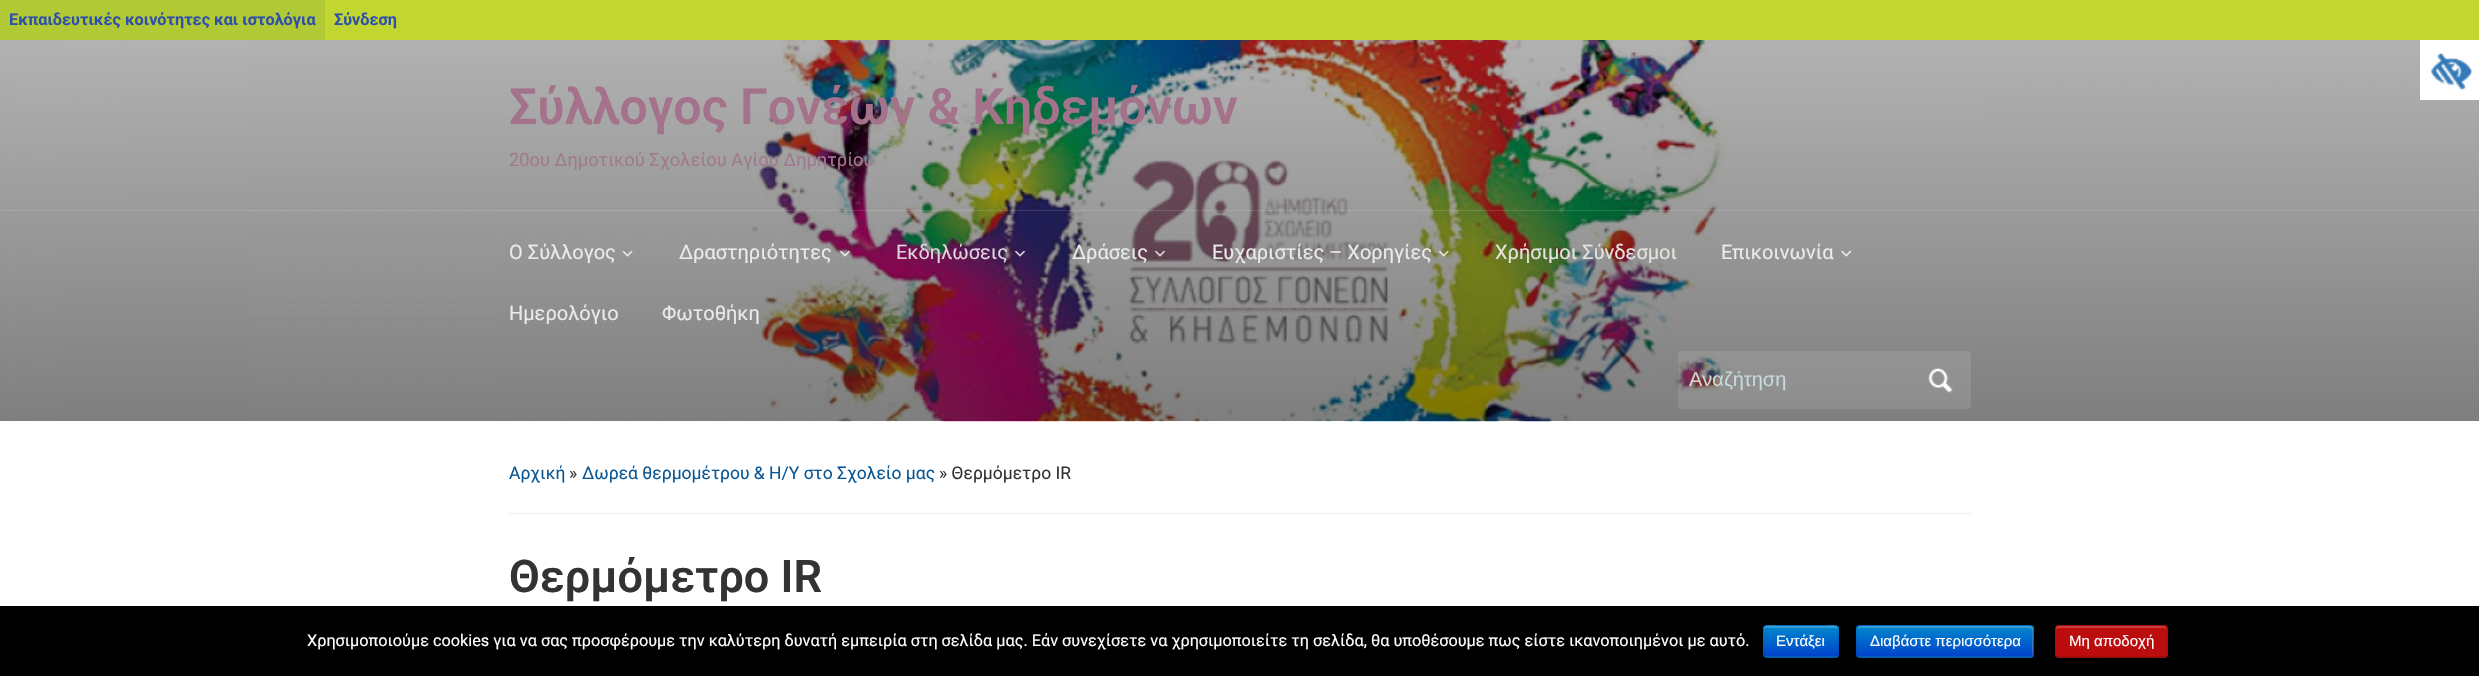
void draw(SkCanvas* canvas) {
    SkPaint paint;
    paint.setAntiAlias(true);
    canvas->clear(0xFFFFFFFF);
    paint.setColor(0xFFC1D630);
    canvas->drawRect(SkRect::MakeXYWH(325, 0, 2154, 40), paint);
    paint.setColor(0xFFB1C935);
    canvas->drawRect(SkRect::MakeXYWH(0, 0, 325, 40), paint);
    SkFont font1(fontMgr->matchFamilyStyle("Roboto", SkFontStyle::Bold()), 16.25f);
    font1.setSubpixel(true);
    paint.setColor(0xFF2E50AA);
    canvas->drawString("Εκπαιδευτικές κοινότητες και ιστολόγια", 9, 25, font1, paint);
    canvas->drawString("Σύνδεση", 334, 25, font1, paint);
    canvas->drawImageRect(SkImages::DeferredFromEncodedData(SkData::MakeFromFileName("img2.png")), SkRect::MakeXYWH(0, 40, 2479, 382), SkSamplingOptions());
    paint.setColor(0xFFFFFFFF);
    canvas->drawRect(SkRect::MakeXYWH(2420, 40, 59, 60), paint);
    canvas->drawImageRect(SkImages::DeferredFromEncodedData(SkData::MakeFromFileName("img1.png")), SkRect::MakeXYWH(2431, 53, 41, 38), SkSamplingOptions());
    SkFont font2(fontMgr->matchFamilyStyle("Roboto", SkFontStyle(600, SkFontStyle::kNormal_Width, SkFontStyle::kUpright_Slant)), 50);
    font2.setSubpixel(true);
    paint.setColor(0xFFA4728A);
    canvas->drawString("Σύλλογος Γονέων & Κηδεμόνων", 509, 124, font2, paint);
    SkFont font3(fontMgr->matchFamilyStyle("Roboto", SkFontStyle::Normal()), 18.3f);
    font3.setSubpixel(true);
    paint.setColor(0xFF9F7A8C);
    canvas->drawString("20ου Δημοτικού Σχολείου Αγίου Δημητρίου", 509, 166, font3, paint);
    paint.setColor(0x21FFFFFF);
    canvas->drawRect(SkRect::MakeXYWH(0, 210, 2479, 1), paint);
    SkFont font4(fontMgr->matchFamilyStyle("Roboto", SkFontStyle::Normal()), 20);
    font4.setSubpixel(true);
    paint.setColor(0xFFEAEAEA);
    canvas->drawString("Ο Σύλλογος", 509, 259, font4, paint);
    canvas->drawImageRect(SkImages::DeferredFromEncodedData(SkData::MakeFromFileName("img3.png")), SkRect::MakeXYWH(622, 250, 11, 7), SkSamplingOptions());
    canvas->drawString("Δραστηριότητες", 679, 259, font4, paint);
    canvas->drawImageRect(SkImages::DeferredFromEncodedData(SkData::MakeFromFileName("img4.png")), SkRect::MakeXYWH(839, 250, 12, 7), SkSamplingOptions());
    paint.setColor(0xFFDED2DC);
    canvas->drawString("Εκδηλώσεις", 896, 259, font4, paint);
    canvas->drawImageRect(SkImages::DeferredFromEncodedData(SkData::MakeFromFileName("img5.png")), SkRect::MakeXYWH(1014, 250, 12, 7), SkSamplingOptions());
    paint.setColor(0xFFEAEAEA);
    canvas->drawString("Δράσεις", 1072, 259, font4, paint);
    canvas->drawImageRect(SkImages::DeferredFromEncodedData(SkData::MakeFromFileName("img6.png")), SkRect::MakeXYWH(1154, 250, 12, 7), SkSamplingOptions());
    canvas->drawString("Ευχαριστίες – Χορηγίες", 1212, 259, font4, paint);
    canvas->drawImageRect(SkImages::DeferredFromEncodedData(SkData::MakeFromFileName("img7.png")), SkRect::MakeXYWH(1438, 250, 11, 7), SkSamplingOptions());
    paint.setColor(0xFFE3E2DC);
    canvas->drawString("Χρήσιμοι Σύνδεσμοι", 1495, 259, font4, paint);
    paint.setColor(0xFFEAEAEA);
    canvas->drawString("Επικοινωνία", 1721, 259, font4, paint);
    canvas->drawImageRect(SkImages::DeferredFromEncodedData(SkData::MakeFromFileName("img8.png")), SkRect::MakeXYWH(1841, 250, 11, 7), SkSamplingOptions());
    canvas->drawString("Ημερολόγιο", 509, 320, font4, paint);
    canvas->drawString("Φωτοθήκη", 662, 320, font4, paint);
    paint.setColor(0x1AFFFFFF);
    canvas->drawRoundRect(SkRect::MakeXYWH(1678, 351, 293, 58), 4, 4, paint);
    SkFont font5(fontMgr->matchFamilyStyle("Liberation Sans", SkFontStyle::Normal()), 20);
    font5.setSubpixel(true);
    paint.setColor(0xFFC6D9DB);
    canvas->drawString("Αναζήτηση", 1689, 386, font5, paint);
    canvas->drawImageRect(SkImages::DeferredFromEncodedData(SkData::MakeFromFileName("img9.png")), SkRect::MakeXYWH(1928, 368, 25, 25), SkSamplingOptions());
    paint.setColor(0xFFEEEEEE);
    canvas->drawRect(SkRect::MakeXYWH(509, 513, 1462, 1), paint);
    SkFont font6(fontMgr->matchFamilyStyle("Roboto", SkFontStyle::Normal()), 17.5f);
    font6.setSubpixel(true);
    paint.setColor(0xFF0A5794);
    canvas->drawString("Αρχική", 509, 479, font6, paint);
    paint.setColor(0xFF333333);
    canvas->drawString("»", 569, 479, font6, paint);
    paint.setColor(0xFF0A5794);
    canvas->drawString("Δωρεά θερμομέτρου & Η/Υ στο Σχολείο μας", 582, 479, font6, paint);
    paint.setColor(0xFF333333);
    canvas->drawString("» Θερμόμετρο IR", 939, 479, font6, paint);
    SkFont font7(fontMgr->matchFamilyStyle("Roboto", SkFontStyle(600, SkFontStyle::kNormal_Width, SkFontStyle::kUpright_Slant)), 45);
    font7.setSubpixel(true);
    canvas->drawString("Θερμόμετρο IR", 509, 592, font7, paint);
    paint.setColor(0xFF000000);
    canvas->drawRect(SkRect::MakeXYWH(0, 606, 2479, 70), paint);
    SkFont font8(fontMgr->matchFamilyStyle("Roboto", SkFontStyle::Normal()), 16.25f);
    font8.setSubpixel(true);
    paint.setColor(0xFFFFFFFF);
    canvas->drawString("Χρησιμοποιούμε cookies για να σας προσφέρουμε την καλύτερη δυνατή εμπειρία στη σελίδα μας. Εάν συνεχίσετε να χρησιμοποιείτε τη σελίδα, θα υποθέσουμε πως είστε ικανοποιημένοι με αυτό.", 307, 646, font8, paint);
    paint.setColor(0xFF006DCC);
    canvas->drawRoundRect(SkRect::MakeXYWH(1763, 625, 76, 33), 4, 4, paint);
    canvas->save();
    canvas->clipPath(SkPathBuilder().moveTo(1767, 625).lineTo(1835, 625).cubicTo(1837, 625, 1839, 627, 1839, 629).lineTo(1839, 654).cubicTo(1839, 656, 1837, 658, 1835, 658).lineTo(1767, 658).cubicTo(1765, 658, 1763, 656, 1763, 654).lineTo(1763, 629).cubicTo(1763, 627, 1765, 625, 1767, 625).close().detach(), true);
    {
        const SkColor colors[] = {0xFF0088CC, 0xFF0044CC};
        const float stops[] = {0, 1};
        const SkPoint ends[] = {{1801, 626}, {1801, 656}};
        paint.setShader(SkGradientShader::MakeLinear(ends, colors, stops, 2, SkTileMode::kClamp));
        paint.setAlpha(255);
    }
    canvas->drawRect(SkRect::MakeXYWH(1763, 626, 76, 30), paint);
    canvas->restore();
    paint.setShader(nullptr);
    paint.setColor(0x33FFFFFF);
    canvas->drawPath(SkPathBuilder().moveTo(1766, 628).lineTo(1835, 628).cubicTo(1836, 628, 1838, 629, 1838, 630).cubicTo(1838, 623, 1830, 626, 1824, 626).lineTo(1778, 626).cubicTo(1772, 626, 1764, 623, 1764, 630).cubicTo(1764, 629, 1765, 628, 1766, 628).close().detach(), paint);
    paint.setStyle(SkPaint::kStroke_Style);
    paint.setStrokeWidth(1.2f);
    paint.setColor(0x40000000);
    canvas->drawPath(SkPathBuilder().moveTo(1837, 656).lineTo(1835.5f, 657).lineTo(1766, 657).lineTo(1764, 656).detach(), paint);
    paint.setColor(0x1A000000);
    canvas->drawPath(SkPathBuilder().moveTo(1764, 656).cubicTo(1762, 654, 1763, 644, 1763, 641).cubicTo(1763, 623.5f, 1760, 625.5f, 1777.5f, 625.5f).lineTo(1823.5f, 625.5f).cubicTo(1841.5f, 625.5f, 1838, 623.5f, 1838, 641).cubicTo(1838, 644, 1839.5f, 654, 1837, 656).detach(), paint);
    SkFont font9(fontMgr->matchFamilyStyle("Liberation Sans", SkFontStyle::Normal()), 15);
    font9.setSubpixel(true);
    paint.setStyle(SkPaint::kFill_Style);
    paint.setColor(0xFFFFFFFF);
    canvas->drawString("Εντάξει", 1776, 646, font9, paint);
    paint.setColor(0xFF006DCC);
    canvas->drawRoundRect(SkRect::MakeXYWH(1856, 625, 178, 33), 4, 4, paint);
    canvas->save();
    canvas->clipPath(SkPathBuilder().moveTo(1860, 625).lineTo(2030, 625).cubicTo(2032, 625, 2034, 627, 2034, 629).lineTo(2034, 654).cubicTo(2034, 656, 2032, 658, 2030, 658).lineTo(1860, 658).cubicTo(1858, 658, 1856, 656, 1856, 654).lineTo(1856, 629).cubicTo(1856, 627, 1858, 625, 1860, 625).close().detach(), true);
    {
        const SkColor colors[] = {0xFF0088CC, 0xFF0044CC};
        const float stops[] = {0, 1};
        const SkPoint ends[] = {{1945, 626}, {1945, 656}};
        paint.setShader(SkGradientShader::MakeLinear(ends, colors, stops, 2, SkTileMode::kClamp));
        paint.setAlpha(255);
    }
    canvas->drawRect(SkRect::MakeXYWH(1856, 626, 178, 30), paint);
    canvas->restore();
    paint.setShader(nullptr);
    paint.setColor(0x33FFFFFF);
    canvas->drawPath(SkPathBuilder().moveTo(1860, 628).lineTo(2030, 628).cubicTo(2034, 628, 2032, 637, 2032, 638).lineTo(2032, 656).cubicTo(2033, 655, 2033, 654, 2033, 654).lineTo(2033, 628).cubicTo(2033, 627, 2032, 626, 2030, 626).lineTo(1860, 626).cubicTo(1859, 626, 1858, 627, 1858, 628).lineTo(1858, 630).cubicTo(1858, 629, 1859, 628, 1860, 628).close().detach(), paint);
    paint.setStyle(SkPaint::kStroke_Style);
    paint.setColor(0xFF005299);
    canvas->drawPath(SkPathBuilder().moveTo(2032, 656).lineTo(2030, 657).lineTo(1860, 657).lineTo(1858, 656).detach(), paint);
    paint.setColor(0x1A000000);
    canvas->drawPath(SkPathBuilder().moveTo(1858, 656).cubicTo(1855.5f, 654, 1857, 644, 1857, 641).lineTo(1857, 633).cubicTo(1857, 630.5f, 1856, 625.5f, 1860, 625.5f).lineTo(2030, 625.5f).cubicTo(2034, 625.5f, 2033, 630.5f, 2033, 633).lineTo(2033, 641).cubicTo(2033, 644, 2034.5f, 654, 2032, 656).detach(), paint);
    paint.setStyle(SkPaint::kFill_Style);
    paint.setColor(0xFFFFFFFF);
    canvas->drawString("Διαβάστε περισσότερα", 1870, 646, font9, paint);
    paint.setColor(0xFFBB0D0D);
    canvas->drawRoundRect(SkRect::MakeXYWH(2055, 625, 113, 33), 4, 4, paint);
    paint.setColor(0xFFC93D3D);
    canvas->drawPath(SkPathBuilder().moveTo(2059, 628).lineTo(2164, 628).cubicTo(2165, 628, 2166, 629, 2166, 630).lineTo(2166, 628).cubicTo(2166, 627, 2165, 626, 2164, 626).lineTo(2058, 626).cubicTo(2057, 626, 2056, 627, 2056, 628).lineTo(2056, 630).cubicTo(2056, 629, 2057, 628, 2059, 628).close().detach(), paint);
    paint.setStyle(SkPaint::kStroke_Style);
    paint.setColor(0xFF8C0A0A);
    canvas->drawPath(SkPathBuilder().moveTo(2166, 656).lineTo(2165.5f, 656.5f).cubicTo(2163, 658, 2085.5f, 657, 2076, 657).lineTo(2059, 657).lineTo(2056.5f, 656).detach(), paint);
    paint.setColor(0x1A000000);
    canvas->drawPath(SkPathBuilder().moveTo(2056.5f, 656).cubicTo(2054.5f, 654, 2055.5f, 648, 2055.5f, 645.5f).cubicTo(2055.5f, 621.5f, 2051, 625.5f, 2076, 625.5f).lineTo(2146, 625.5f).cubicTo(2171.5f, 625.5f, 2167, 621.5f, 2167, 645.5f).cubicTo(2167, 648, 2168, 654, 2166, 656).detach(), paint);
    paint.setStyle(SkPaint::kFill_Style);
    paint.setColor(0xFFFFFFFF);
    canvas->drawString("Μη αποδοχή", 2069, 646, font9, paint);
}
